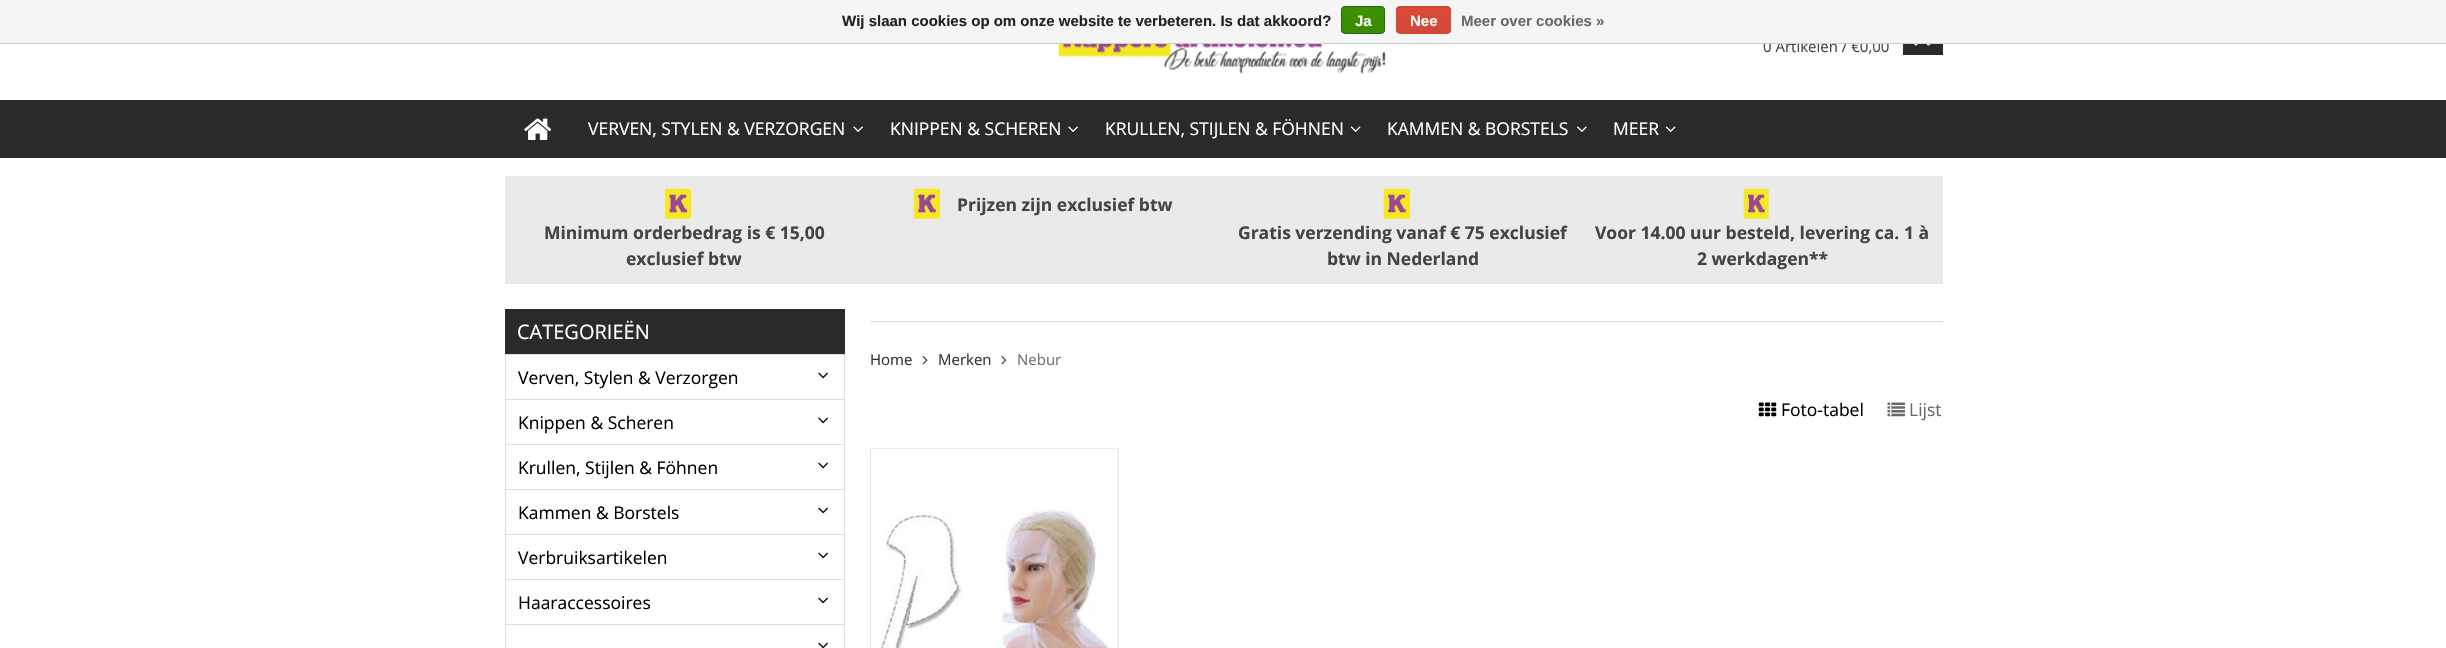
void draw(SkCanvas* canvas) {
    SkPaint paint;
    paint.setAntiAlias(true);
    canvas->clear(0xFFFFFFFF);
    SkFont font1(fontMgr->matchFamilyStyle("Open Sans", SkFontStyle::Normal()), 15);
    font1.setSubpixel(true);
    paint.setColor(0xFF444444);
    canvas->drawString("0 Artikelen / €0,00", 1763, 52, font1, paint);
    paint.setColor(0xFFF5F5F5);
    canvas->drawRect(SkRect::MakeXYWH(0, 0, 2446, 43), paint);
    paint.setColor(0xFFCCCCCC);
    canvas->drawRect(SkRect::MakeXYWH(0, 43, 2446, 1), paint);
    SkFont font2(fontMgr->matchFamilyStyle("Liberation Sans", SkFontStyle::Bold()), 15);
    font2.setSubpixel(true);
    paint.setColor(0xFF222222);
    canvas->drawString("Wij slaan cookies op om onze website te verbeteren. Is dat akkoord?", 842, 26, font2, paint);
    canvas->save();
    canvas->clipPath(SkPathBuilder().moveTo(1345, 6).lineTo(1381, 6).cubicTo(1383, 6, 1385, 8, 1385, 10).lineTo(1385, 30).cubicTo(1385, 32, 1383, 34, 1381, 34).lineTo(1345, 34).cubicTo(1343, 34, 1341, 32, 1341, 30).lineTo(1341, 10).cubicTo(1341, 8, 1343, 6, 1345, 6).close().detach(), true);
    {
        const SkColor colors[] = {0xFF3C9300, 0xFF398A00};
        const float stops[] = {0, 1};
        const SkPoint ends[] = {{1363, -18}, {1363, 7.5f}};
        paint.setShader(SkGradientShader::MakeLinear(ends, colors, stops, 2, SkTileMode::kClamp));
        paint.setAlpha(255);
    }
    canvas->drawRect(SkRect::MakeXYWH(1341, 6, 44, 2), paint);
    {
        const SkColor colors[] = {0xFF3C9300, 0xFF398A00};
        const float stops[] = {0, 1};
        const SkPoint ends[] = {{1363, 7.5f}, {1363, 33}};
        paint.setShader(SkGradientShader::MakeLinear(ends, colors, stops, 2, SkTileMode::kClamp));
        paint.setAlpha(255);
    }
    canvas->drawRect(SkRect::MakeXYWH(1341, 8, 44, 25), paint);
    canvas->restore();
    paint.setStyle(SkPaint::kStroke_Style);
    paint.setStrokeWidth(1);
    paint.setShader(nullptr);
    paint.setColor(0xFF29691D);
    canvas->drawRoundRect(SkRect::MakeXYWH(1341.5f, 6.5f, 43, 27), 3.5f, 3.5f, paint);
    paint.setStyle(SkPaint::kFill_Style);
    paint.setColor(0xFFFFFFFF);
    canvas->drawString("Ja", 1355, 26, font2, paint);
    canvas->save();
    canvas->clipPath(SkPathBuilder().moveTo(1400, 6).lineTo(1447, 6).cubicTo(1449, 6, 1451, 8, 1451, 10).lineTo(1451, 30).cubicTo(1451, 32, 1449, 34, 1447, 34).lineTo(1400, 34).cubicTo(1398, 34, 1396, 32, 1396, 30).lineTo(1396, 10).cubicTo(1396, 8, 1398, 6, 1400, 6).close().detach(), true);
    {
        const SkColor colors[] = {0xFFDC4A38, 0xFFD14836};
        const float stops[] = {0, 1};
        const SkPoint ends[] = {{1424, -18}, {1424, 7.5f}};
        paint.setShader(SkGradientShader::MakeLinear(ends, colors, stops, 2, SkTileMode::kClamp));
        paint.setAlpha(255);
    }
    canvas->drawRect(SkRect::MakeXYWH(1396, 6, 55, 2), paint);
    {
        const SkColor colors[] = {0xFFDC4A38, 0xFFD14836};
        const float stops[] = {0, 1};
        const SkPoint ends[] = {{1424, 7.5f}, {1424, 33}};
        paint.setShader(SkGradientShader::MakeLinear(ends, colors, stops, 2, SkTileMode::kClamp));
        paint.setAlpha(255);
    }
    canvas->drawRect(SkRect::MakeXYWH(1396, 8, 55, 25), paint);
    canvas->restore();
    paint.setStyle(SkPaint::kStroke_Style);
    paint.setShader(nullptr);
    paint.setColor(0xFFD14836);
    canvas->drawRoundRect(SkRect::MakeXYWH(1396.5f, 6.5f, 54, 27), 3.5f, 3.5f, paint);
    paint.setStyle(SkPaint::kFill_Style);
    paint.setColor(0xFFFFFFFF);
    canvas->drawString("Nee", 1410, 26, font2, paint);
    paint.setColor(0xFF696969);
    canvas->drawString("Meer over cookies »", 1461, 26, font2, paint);
    canvas->drawImageRect(SkImages::DeferredFromEncodedData(SkData::MakeFromFileName("img1.png")), SkRect::MakeXYWH(1058, 44, 328, 30), SkSamplingOptions());
    paint.setColor(0xFF2A2A2A);
    canvas->drawRect(SkRect::MakeXYWH(1903, 44, 40, 11), paint);
    canvas->drawImageRect(SkImages::DeferredFromEncodedData(SkData::MakeFromFileName("img2.png")), SkRect::MakeXYWH(1914, 44, 17, 2), SkSamplingOptions());
    canvas->drawRect(SkRect::MakeXYWH(0, 100, 2446, 58), paint);
    canvas->drawImageRect(SkImages::DeferredFromEncodedData(SkData::MakeFromFileName("img3.png")), SkRect::MakeXYWH(524, 118, 28, 22), SkSamplingOptions());
    SkFont font3(fontMgr->matchFamilyStyle("Open Sans", SkFontStyle::Normal()), 17.5f);
    font3.setSubpixel(true);
    paint.setColor(0xFFFFFFFF);
    canvas->drawString("VERVEN, STYLEN & VERZORGEN", 588, 135, font3, paint);
    canvas->drawImageRect(SkImages::DeferredFromEncodedData(SkData::MakeFromFileName("img4.png")), SkRect::MakeXYWH(853, 126, 10, 6), SkSamplingOptions());
    canvas->drawString("KNIPPEN & SCHEREN", 890, 135, font3, paint);
    canvas->drawImageRect(SkImages::DeferredFromEncodedData(SkData::MakeFromFileName("img4.png")), SkRect::MakeXYWH(1068, 126, 10, 6), SkSamplingOptions());
    canvas->drawString("KRULLEN, STIJLEN & FÖHNEN", 1105, 135, font3, paint);
    canvas->drawImageRect(SkImages::DeferredFromEncodedData(SkData::MakeFromFileName("img5.png")), SkRect::MakeXYWH(1350, 126, 11, 6), SkSamplingOptions());
    canvas->drawString("KAMMEN & BORSTELS", 1387, 135, font3, paint);
    canvas->drawImageRect(SkImages::DeferredFromEncodedData(SkData::MakeFromFileName("img6.png")), SkRect::MakeXYWH(1577, 126, 10, 6), SkSamplingOptions());
    canvas->drawString("MEER", 1613, 135, font3, paint);
    canvas->drawImageRect(SkImages::DeferredFromEncodedData(SkData::MakeFromFileName("img5.png")), SkRect::MakeXYWH(1665, 126, 11, 6), SkSamplingOptions());
    paint.setColor(0xFFEAEAEA);
    canvas->drawRect(SkRect::MakeXYWH(505, 176, 1438, 108), paint);
    canvas->drawImageRect(SkImages::DeferredFromEncodedData(SkData::MakeFromFileName("img7.png")), SkRect::MakeXYWH(913, 188, 27, 31), SkSamplingOptions());
    SkFont font4(fontMgr->matchFamilyStyle("Open Sans", SkFontStyle::Bold()), 17.5f);
    font4.setSubpixel(true);
    paint.setColor(0xFF444444);
    canvas->drawString("Prijzen zijn exclusief btw", 957, 211, font4, paint);
    canvas->drawImageRect(SkImages::DeferredFromEncodedData(SkData::MakeFromFileName("img8.png")), SkRect::MakeXYWH(665, 188, 27, 31), SkSamplingOptions());
    canvas->drawString("Minimum orderbedrag is € 15,00", 544, 239, font4, paint);
    canvas->drawString("exclusief btw", 626, 265, font4, paint);
    canvas->drawImageRect(SkImages::DeferredFromEncodedData(SkData::MakeFromFileName("img7.png")), SkRect::MakeXYWH(1383, 188, 27, 31), SkSamplingOptions());
    canvas->drawString("Gratis verzending vanaf € 75 exclusief", 1238, 239, font4, paint);
    canvas->drawString("btw in Nederland", 1327, 265, font4, paint);
    canvas->drawImageRect(SkImages::DeferredFromEncodedData(SkData::MakeFromFileName("img9.png")), SkRect::MakeXYWH(1743, 188, 26, 31), SkSamplingOptions());
    canvas->drawString("Voor 14.00 uur besteld, levering ca. 1 à", 1595, 239, font4, paint);
    canvas->drawString("2 werkdagen**", 1697, 265, font4, paint);
    paint.setColor(0xFF2A2A2A);
    canvas->drawRect(SkRect::MakeXYWH(505, 309, 340, 45), paint);
    SkFont font5(fontMgr->matchFamilyStyle("Open Sans", SkFontStyle::Normal()), 20);
    font5.setSubpixel(true);
    paint.setColor(0xFFFFFFFF);
    canvas->drawString("CATEGORIEËN", 517, 339, font5, paint);
    paint.setStyle(SkPaint::kStroke_Style);
    paint.setColor(0xFFDDDDDD);
    canvas->drawRect(SkRect::MakeXYWH(505.5f, 354.5f, 339, 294), paint);
    paint.setStyle(SkPaint::kFill_Style);
    canvas->drawRect(SkRect::MakeXYWH(506, 399, 338, 1), paint);
    paint.setColor(0xFF000000);
    canvas->drawString("Verven, Stylen & Verzorgen", 518, 384, font3, paint);
    canvas->drawImageRect(SkImages::DeferredFromEncodedData(SkData::MakeFromFileName("img10.png")), SkRect::MakeXYWH(818, 372, 10, 7), SkSamplingOptions());
    paint.setColor(0xFFDDDDDD);
    canvas->drawRect(SkRect::MakeXYWH(506, 444, 338, 1), paint);
    paint.setColor(0xFF000000);
    canvas->drawString("Knippen & Scheren", 518, 429, font3, paint);
    canvas->drawImageRect(SkImages::DeferredFromEncodedData(SkData::MakeFromFileName("img10.png")), SkRect::MakeXYWH(818, 417, 10, 7), SkSamplingOptions());
    paint.setColor(0xFFDDDDDD);
    canvas->drawRect(SkRect::MakeXYWH(506, 489, 338, 1), paint);
    paint.setColor(0xFF000000);
    canvas->drawString("Krullen, Stijlen & Föhnen", 518, 474, font3, paint);
    canvas->drawImageRect(SkImages::DeferredFromEncodedData(SkData::MakeFromFileName("img10.png")), SkRect::MakeXYWH(818, 462, 10, 7), SkSamplingOptions());
    paint.setColor(0xFFDDDDDD);
    canvas->drawRect(SkRect::MakeXYWH(506, 534, 338, 1), paint);
    paint.setColor(0xFF000000);
    canvas->drawString("Kammen & Borstels", 518, 519, font3, paint);
    canvas->drawImageRect(SkImages::DeferredFromEncodedData(SkData::MakeFromFileName("img10.png")), SkRect::MakeXYWH(818, 507, 10, 7), SkSamplingOptions());
    paint.setColor(0xFFDDDDDD);
    canvas->drawRect(SkRect::MakeXYWH(506, 579, 338, 1), paint);
    paint.setColor(0xFF000000);
    canvas->drawString("Verbruiksartikelen", 518, 564, font3, paint);
    canvas->drawImageRect(SkImages::DeferredFromEncodedData(SkData::MakeFromFileName("img10.png")), SkRect::MakeXYWH(818, 552, 10, 7), SkSamplingOptions());
    paint.setColor(0xFFDDDDDD);
    canvas->drawRect(SkRect::MakeXYWH(506, 624, 338, 1), paint);
    paint.setColor(0xFF000000);
    canvas->drawString("Haaraccessoires", 518, 609, font3, paint);
    canvas->drawImageRect(SkImages::DeferredFromEncodedData(SkData::MakeFromFileName("img10.png")), SkRect::MakeXYWH(818, 597, 10, 7), SkSamplingOptions());
    canvas->drawImageRect(SkImages::DeferredFromEncodedData(SkData::MakeFromFileName("img11.png")), SkRect::MakeXYWH(818, 642, 10, 6), SkSamplingOptions());
    paint.setColor(0xFFDDDDDD);
    canvas->drawRect(SkRect::MakeXYWH(870, 321, 1073, 1), paint);
    paint.setColor(0xFF333333);
    canvas->drawString("Home", 870, 365, font1, paint);
    canvas->drawImageRect(SkImages::DeferredFromEncodedData(SkData::MakeFromFileName("img12.png")), SkRect::MakeXYWH(922, 356, 6, 9), SkSamplingOptions());
    canvas->drawString("Merken", 938, 365, font1, paint);
    canvas->drawImageRect(SkImages::DeferredFromEncodedData(SkData::MakeFromFileName("img13.png")), SkRect::MakeXYWH(1001, 356, 6, 9), SkSamplingOptions());
    paint.setColor(0xFF727272);
    canvas->drawString("Nebur", 1017, 365, font1, paint);
    canvas->drawImageRect(SkImages::DeferredFromEncodedData(SkData::MakeFromFileName("img14.png")), SkRect::MakeXYWH(1758, 402, 19, 15), SkSamplingOptions());
    paint.setColor(0xFF000000);
    canvas->drawString("Foto-tabel", 1781, 416, font3, paint);
    canvas->drawImageRect(SkImages::DeferredFromEncodedData(SkData::MakeFromFileName("img15.png")), SkRect::MakeXYWH(1887, 402, 18, 15), SkSamplingOptions());
    paint.setColor(0xFF696969);
    canvas->drawString("Lijst", 1909, 416, font3, paint);
    paint.setColor(0xFFE7E7E7);
    canvas->drawRect(SkRect::MakeXYWH(870, 448, 249, 1), paint);
    canvas->drawRect(SkRect::MakeXYWH(1118, 448, 1, 200), paint);
    canvas->drawRect(SkRect::MakeXYWH(870, 448, 1, 200), paint);
    paint.setColor(0xFFF7F7F7);
    canvas->drawRect(SkRect::MakeXYWH(871, 449, 247, 199), paint);
    canvas->drawImageRect(SkImages::DeferredFromEncodedData(SkData::MakeFromFileName("img16.png")), SkRect::MakeXYWH(871, 448, 247, 200), SkSamplingOptions());
}
